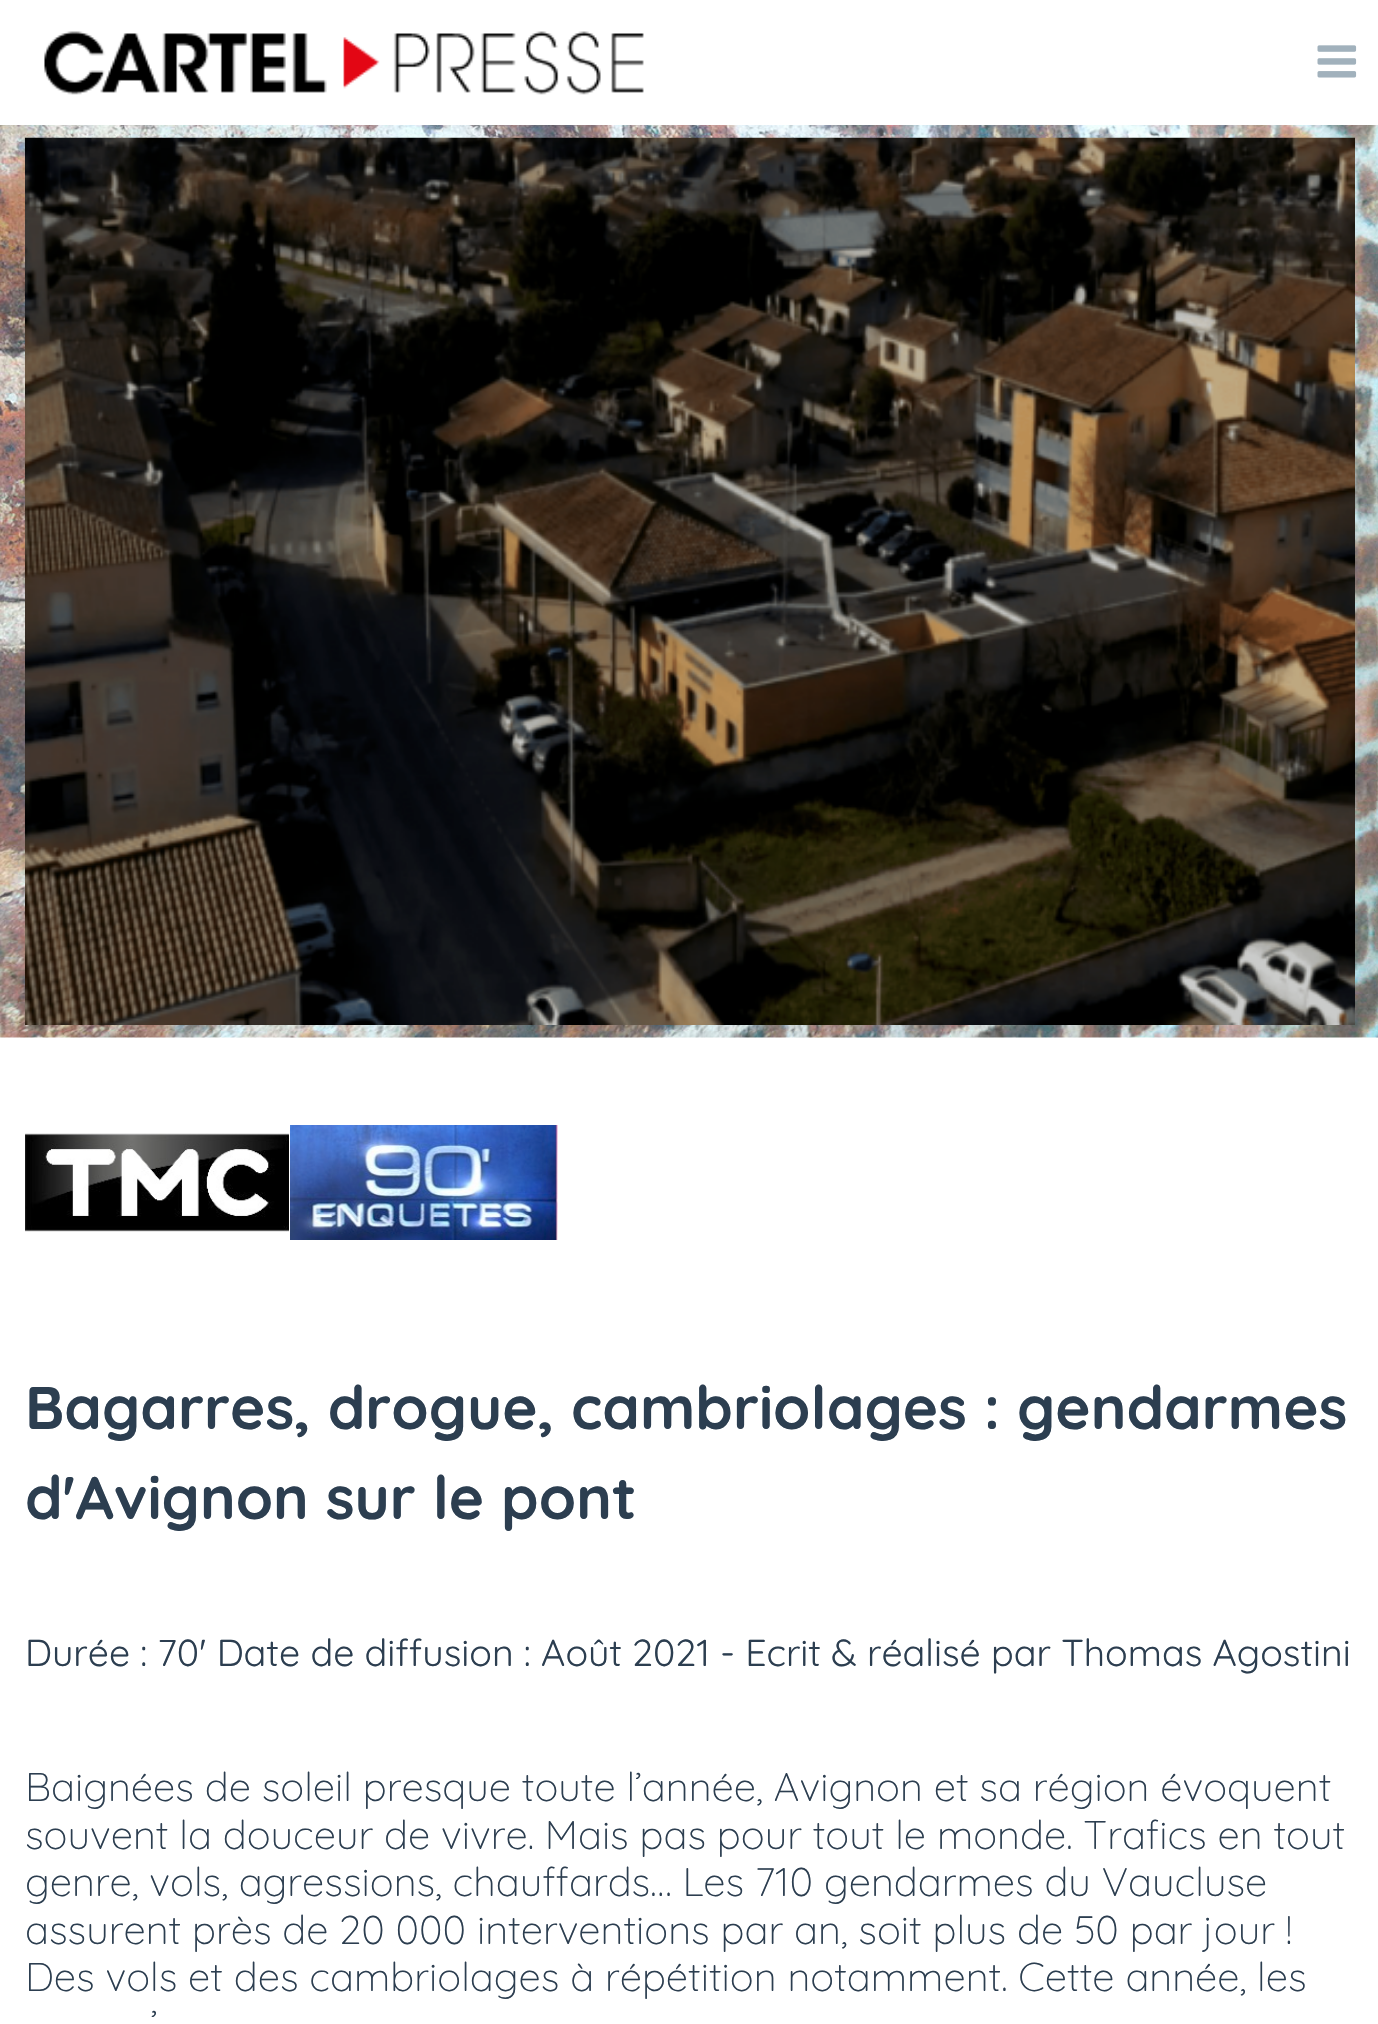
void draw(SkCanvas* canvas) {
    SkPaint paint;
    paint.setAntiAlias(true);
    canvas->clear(0xFFFFFFFF);
    canvas->drawImageRect(SkImages::DeferredFromEncodedData(SkData::MakeFromFileName("img1.png")), SkRect::MakeXYWH(44, 31, 600, 64), SkSamplingOptions());
    canvas->drawImageRect(SkImages::DeferredFromEncodedData(SkData::MakeFromFileName("img2.png")), SkRect::MakeXYWH(1317, 45, 40, 33), SkSamplingOptions());
    canvas->drawImageRect(SkImages::DeferredFromEncodedData(SkData::MakeFromFileName("img3.png")), SkRect::MakeXYWH(0, 125, 1378, 913), SkSamplingOptions());
    canvas->drawImageRect(SkImages::DeferredFromEncodedData(SkData::MakeFromFileName("img4.png")), SkRect::MakeXYWH(25, 137, 1330, 888), SkSamplingOptions());
    canvas->drawImageRect(SkImages::DeferredFromEncodedData(SkData::MakeFromFileName("img5.png")), SkRect::MakeXYWH(25, 1133, 264, 99), SkSamplingOptions());
    canvas->drawImageRect(SkImages::DeferredFromEncodedData(SkData::MakeFromFileName("img6.png")), SkRect::MakeXYWH(290, 1125, 268, 115), SkSamplingOptions());
    SkFont font1(fontMgr->matchFamilyStyle("Quicksand", SkFontStyle::Bold()), 60);
    font1.setSubpixel(true);
    paint.setColor(0xFF2C3E50);
    canvas->drawString("Bagarres, drogue, cambriolages : gendarmes", 25, 1429, font1, paint);
    canvas->drawString("d'Avignon sur le pont", 25, 1519, font1, paint);
    SkFont font2(fontMgr->matchFamilyStyle("Quicksand", SkFontStyle::Normal()), 37.5f);
    font2.setSubpixel(true);
    canvas->drawString("Durée : 70' Date de diffusion : Août 2021 - Ecrit & réalisé par Thomas Agostini", 25, 1666, font2, paint);
    SkFont font3(fontMgr->matchFamilyStyle("Quicksand", SkFontStyle(300, SkFontStyle::kNormal_Width, SkFontStyle::kUpright_Slant)), 40);
    font3.setSubpixel(true);
    canvas->drawString("Baignées de soleil presque toute l’année, Avignon et sa région évoquent", 25, 1801, font3, paint);
    canvas->drawString("souvent la douceur de vivre. Mais pas pour tout le monde. Trafics en tout", 25, 1849, font3, paint);
    canvas->drawString("genre, vols, agressions, chauffards… Les 710 gendarmes du Vaucluse", 25, 1896, font3, paint);
    canvas->drawString("assurent près de 20 000 interventions par an, soit plus de 50 par jour !", 25, 1944, font3, paint);
    canvas->drawString("Des vols et des cambriolages à répétition notamment. Cette année, les", 25, 1991, font3, paint);
    canvas->drawString("’", 151, 2039, font3, paint);
}
